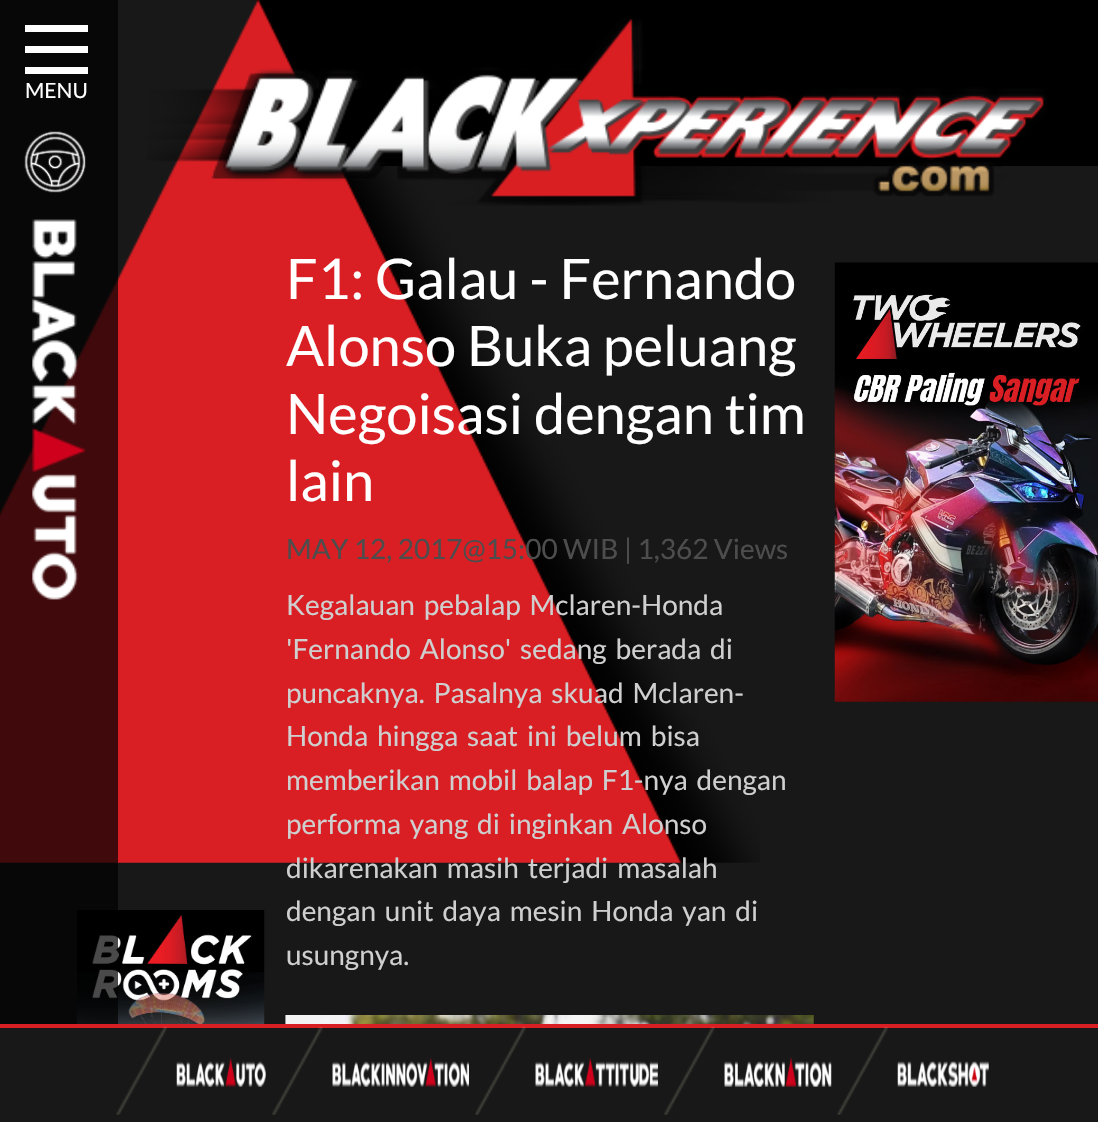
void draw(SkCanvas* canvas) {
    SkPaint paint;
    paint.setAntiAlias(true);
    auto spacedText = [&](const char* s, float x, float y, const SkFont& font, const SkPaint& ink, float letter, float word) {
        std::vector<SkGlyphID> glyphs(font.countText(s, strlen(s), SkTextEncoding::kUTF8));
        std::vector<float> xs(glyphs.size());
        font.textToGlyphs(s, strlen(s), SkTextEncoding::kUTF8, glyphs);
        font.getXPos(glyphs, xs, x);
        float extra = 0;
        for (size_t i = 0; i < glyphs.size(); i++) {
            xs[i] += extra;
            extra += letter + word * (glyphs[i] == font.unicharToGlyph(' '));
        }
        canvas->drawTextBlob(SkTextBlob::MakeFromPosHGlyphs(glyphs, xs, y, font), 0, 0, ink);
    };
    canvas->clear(0xFF181818);
    paint.setColor(0xFF000000);
    canvas->drawRect(SkRect::MakeXYWH(257, 0, 841, 166), paint);
    canvas->drawImageRect(SkImages::DeferredFromEncodedData(SkData::MakeFromFileName("img1.png")), SkRect::MakeXYWH(0, 0, 760, 863), SkSamplingOptions());
    canvas->drawImageRect(SkImages::DeferredFromEncodedData(SkData::MakeFromFileName("img7.png")), SkRect::MakeXYWH(77, 910, 188, 114), SkSamplingOptions());
    paint.setColor(0xB5000000);
    canvas->drawRect(SkRect::MakeXYWH(0, 0, 118, 1024), paint);
    paint.setColor(0xFFFFFFFF);
    canvas->drawRect(SkRect::MakeXYWH(25, 25, 63, 7), paint);
    canvas->drawRect(SkRect::MakeXYWH(25, 46, 63, 7), paint);
    canvas->drawRect(SkRect::MakeXYWH(25, 67, 63, 7), paint);
    SkFont font1(fontMgr->matchFamilyStyle("Lato", SkFontStyle::Normal()), 21);
    font1.setSubpixel(true);
    canvas->drawString("MENU", 25, 98, font1, paint);
    canvas->drawImageRect(SkImages::DeferredFromEncodedData(SkData::MakeFromFileName("img2.png")), SkRect::MakeXYWH(147, 18, 900, 188), SkSamplingOptions());
    canvas->drawImageRect(SkImages::DeferredFromEncodedData(SkData::MakeFromFileName("img3.png")), SkRect::MakeXYWH(24, 131, 62, 62), SkSamplingOptions());
    canvas->drawImageRect(SkImages::DeferredFromEncodedData(SkData::MakeFromFileName("img4.png")), SkRect::MakeXYWH(32, 219, 53, 381), SkSamplingOptions());
    SkFont font2(fontMgr->matchFamilyStyle("Lato", SkFontStyle::Normal()), 56);
    font2.setSubpixel(true);
    canvas->drawString("F1: Galau - Fernando", 286, 299, font2, paint);
    canvas->drawString("Alonso Buka peluang", 286, 366, font2, paint);
    canvas->drawString("Negoisasi dengan tim", 286, 434, font2, paint);
    canvas->drawString("lain", 286, 501, font2, paint);
    SkFont font3(fontMgr->matchFamilyStyle("Lato", SkFontStyle::Normal()), 28);
    font3.setSubpixel(true);
    paint.setColor(0xFF4D4D4D);
    canvas->drawString("MAY 12, 2017@15:00 WIB | 1,362 Views", 286, 559, font3, paint);
    paint.setColor(0xFFCFCFCF);
    spacedText("Kegalauan pebalap Mclaren-Honda", 286, 615, font3, paint, 0, 3.5f);
    spacedText("'Fernando Alonso' sedang berada di", 286, 659, font3, paint, 0, 3.5f);
    spacedText("puncaknya. Pasalnya skuad Mclaren-", 286, 703, font3, paint, 0, 3.5f);
    spacedText("Honda hingga saat ini belum bisa", 286, 746, font3, paint, 0, 3.5f);
    spacedText("memberikan mobil balap F1-nya dengan", 286, 790, font3, paint, 0, 3.5f);
    spacedText("performa yang di inginkan Alonso", 286, 834, font3, paint, 0, 3.5f);
    spacedText("dikarenakan masih terjadi masalah", 286, 878, font3, paint, 0, 3.5f);
    spacedText("dengan unit daya mesin Honda yan di", 286, 921, font3, paint, 0, 3.5f);
    canvas->drawString("usungnya.", 286, 965, font3, paint);
    canvas->drawImageRect(SkImages::DeferredFromEncodedData(SkData::MakeFromFileName("img5.png")), SkRect::MakeXYWH(285, 1015, 529, 9), SkSamplingOptions());
    canvas->drawImageRect(SkImages::DeferredFromEncodedData(SkData::MakeFromFileName("img6.png")), SkRect::MakeXYWH(834, 262, 264, 440), SkSamplingOptions());
    paint.setColor(0xFFDA1F24);
    canvas->drawRect(SkRect::MakeXYWH(0, 1024, 1098, 4), paint);
    canvas->drawImageRect(SkImages::DeferredFromEncodedData(SkData::MakeFromFileName("img8.png")), SkRect::MakeXYWH(116, 1027, 51, 88), SkSamplingOptions());
    canvas->drawImageRect(SkImages::DeferredFromEncodedData(SkData::MakeFromFileName("img9.png")), SkRect::MakeXYWH(176, 1057, 90, 30), SkSamplingOptions());
    canvas->drawImageRect(SkImages::DeferredFromEncodedData(SkData::MakeFromFileName("img10.png")), SkRect::MakeXYWH(272, 1027, 51, 88), SkSamplingOptions());
    canvas->drawImageRect(SkImages::DeferredFromEncodedData(SkData::MakeFromFileName("img11.png")), SkRect::MakeXYWH(332, 1057, 137, 30), SkSamplingOptions());
    canvas->drawImageRect(SkImages::DeferredFromEncodedData(SkData::MakeFromFileName("img10.png")), SkRect::MakeXYWH(475, 1027, 51, 88), SkSamplingOptions());
    canvas->drawImageRect(SkImages::DeferredFromEncodedData(SkData::MakeFromFileName("img12.png")), SkRect::MakeXYWH(535, 1057, 123, 30), SkSamplingOptions());
    canvas->drawImageRect(SkImages::DeferredFromEncodedData(SkData::MakeFromFileName("img13.png")), SkRect::MakeXYWH(664, 1027, 51, 88), SkSamplingOptions());
    canvas->drawImageRect(SkImages::DeferredFromEncodedData(SkData::MakeFromFileName("img14.png")), SkRect::MakeXYWH(724, 1057, 108, 30), SkSamplingOptions());
    canvas->drawImageRect(SkImages::DeferredFromEncodedData(SkData::MakeFromFileName("img8.png")), SkRect::MakeXYWH(837, 1027, 51, 88), SkSamplingOptions());
    canvas->drawImageRect(SkImages::DeferredFromEncodedData(SkData::MakeFromFileName("img15.png")), SkRect::MakeXYWH(897, 1061, 92, 26), SkSamplingOptions());
}
